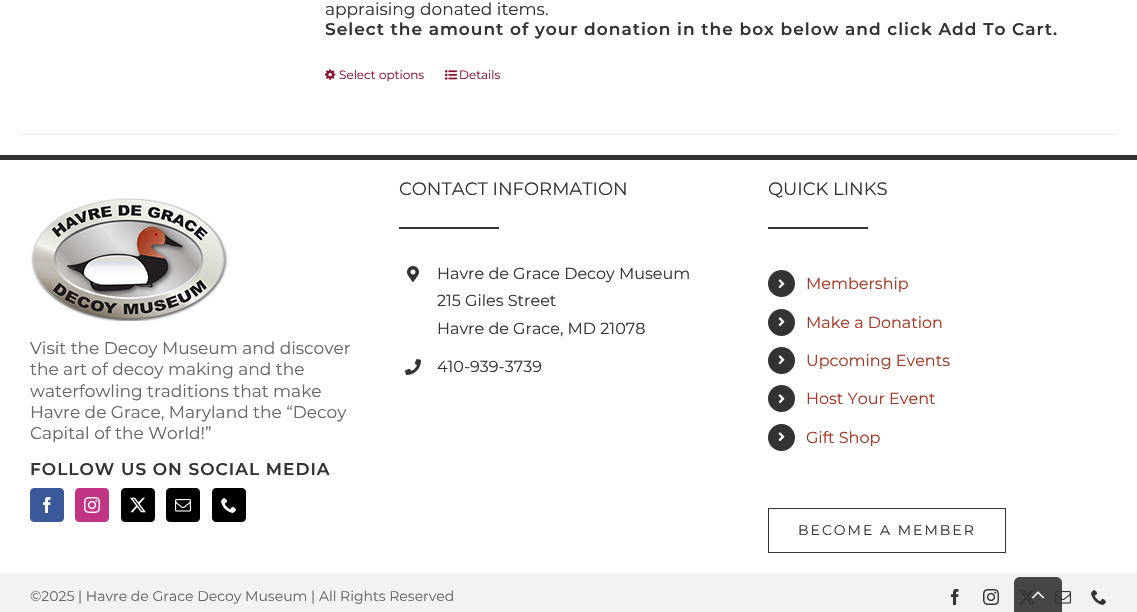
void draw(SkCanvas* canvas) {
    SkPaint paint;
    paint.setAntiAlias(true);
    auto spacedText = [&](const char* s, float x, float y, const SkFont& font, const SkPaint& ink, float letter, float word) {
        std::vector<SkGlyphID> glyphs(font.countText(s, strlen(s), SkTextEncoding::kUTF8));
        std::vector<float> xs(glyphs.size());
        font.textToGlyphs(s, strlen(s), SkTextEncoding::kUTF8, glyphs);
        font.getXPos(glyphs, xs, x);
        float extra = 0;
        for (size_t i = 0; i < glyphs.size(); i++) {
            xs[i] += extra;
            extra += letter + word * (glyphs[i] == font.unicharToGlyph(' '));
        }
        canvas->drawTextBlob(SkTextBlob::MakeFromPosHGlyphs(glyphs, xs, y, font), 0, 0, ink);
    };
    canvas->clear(0xFFFFFFFF);
    paint.setColor(0xFFEBEAEA);
    canvas->drawRect(SkRect::MakeXYWH(20, 134, 1097, 1), paint);
    SkFont font1(fontMgr->matchFamilyStyle("Montserrat", SkFontStyle::Normal()), 17);
    font1.setSubpixel(true);
    paint.setColor(0xFF333333);
    canvas->drawString("appraising donated items.", 325, 15, font1, paint);
    SkFont font2(fontMgr->matchFamilyStyle("Montserrat", SkFontStyle(600, SkFontStyle::kNormal_Width, SkFontStyle::kUpright_Slant)), 17);
    font2.setSubpixel(true);
    spacedText("Select the amount of your donation in the box below and click Add To Cart.", 325, 35, font2, paint, 1, 0);
    canvas->drawImageRect(SkImages::DeferredFromEncodedData(SkData::MakeFromFileName("img1.png")), SkRect::MakeXYWH(325, 69, 11, 11), SkSamplingOptions());
    SkFont font3(fontMgr->matchFamilyStyle("Montserrat", SkFontStyle::Normal()), 12);
    font3.setSubpixel(true);
    paint.setColor(0xFF89112B);
    canvas->drawString("Select options", 339, 79, font3, paint);
    canvas->drawImageRect(SkImages::DeferredFromEncodedData(SkData::MakeFromFileName("img2.png")), SkRect::MakeXYWH(445, 70, 12, 10), SkSamplingOptions());
    canvas->drawString("Details", 459, 79, font3, paint);
    paint.setColor(0xFF333333);
    canvas->drawRect(SkRect::MakeXYWH(0, 155, 1137, 5), paint);
    canvas->drawImageRect(SkImages::DeferredFromEncodedData(SkData::MakeFromFileName("img3.png")), SkRect::MakeXYWH(31, 198, 197, 123), SkSamplingOptions());
    paint.setColor(0xFF666666);
    canvas->drawString("Visit the Decoy Museum and discover", 30, 354, font1, paint);
    canvas->drawString("the art of decoy making and the", 30, 375, font1, paint);
    canvas->drawString("waterfowling traditions that make", 30, 397, font1, paint);
    canvas->drawString("Havre de Grace, Maryland the “Decoy", 30, 418, font1, paint);
    canvas->drawString("Capital of the World!”", 30, 439, font1, paint);
    paint.setColor(0xFF333333);
    spacedText("FOLLOW US ON SOCIAL MEDIA", 30, 475, font2, paint, 1, 0);
    paint.setColor(0xFF3B5998);
    canvas->drawRoundRect(SkRect::MakeXYWH(30.5f, 488.5f, 33, 33), 3.5f, 3.5f, paint);
    paint.setStyle(SkPaint::kStroke_Style);
    paint.setStrokeWidth(1);
    canvas->drawRoundRect(SkRect::MakeXYWH(30.5f, 488.5f, 33, 33), 3.5f, 3.5f, paint);
    canvas->drawImageRect(SkImages::DeferredFromEncodedData(SkData::MakeFromFileName("img4.png")), SkRect::MakeXYWH(43, 497, 8, 16), SkSamplingOptions());
    paint.setStyle(SkPaint::kFill_Style);
    paint.setColor(0xFFC13584);
    canvas->drawRoundRect(SkRect::MakeXYWH(75.5f, 488.5f, 33, 33), 3.5f, 3.5f, paint);
    paint.setStyle(SkPaint::kStroke_Style);
    canvas->drawRoundRect(SkRect::MakeXYWH(75.5f, 488.5f, 33, 33), 3.5f, 3.5f, paint);
    canvas->drawImageRect(SkImages::DeferredFromEncodedData(SkData::MakeFromFileName("img5.png")), SkRect::MakeXYWH(84, 497, 16, 16), SkSamplingOptions());
    paint.setStyle(SkPaint::kFill_Style);
    paint.setColor(0xFF000000);
    canvas->drawRoundRect(SkRect::MakeXYWH(121.5f, 488.5f, 33, 33), 3.5f, 3.5f, paint);
    paint.setStyle(SkPaint::kStroke_Style);
    canvas->drawRoundRect(SkRect::MakeXYWH(121.5f, 488.5f, 33, 33), 3.5f, 3.5f, paint);
    canvas->drawImageRect(SkImages::DeferredFromEncodedData(SkData::MakeFromFileName("img6.png")), SkRect::MakeXYWH(130, 497, 16, 16), SkSamplingOptions());
    paint.setStyle(SkPaint::kFill_Style);
    canvas->drawRoundRect(SkRect::MakeXYWH(166.5f, 488.5f, 33, 33), 3.5f, 3.5f, paint);
    paint.setStyle(SkPaint::kStroke_Style);
    canvas->drawRoundRect(SkRect::MakeXYWH(166.5f, 488.5f, 33, 33), 3.5f, 3.5f, paint);
    canvas->drawImageRect(SkImages::DeferredFromEncodedData(SkData::MakeFromFileName("img7.png")), SkRect::MakeXYWH(175, 499, 16, 13), SkSamplingOptions());
    paint.setStyle(SkPaint::kFill_Style);
    canvas->drawRoundRect(SkRect::MakeXYWH(212.5f, 488.5f, 33, 33), 3.5f, 3.5f, paint);
    paint.setStyle(SkPaint::kStroke_Style);
    canvas->drawRoundRect(SkRect::MakeXYWH(212.5f, 488.5f, 33, 33), 3.5f, 3.5f, paint);
    canvas->drawImageRect(SkImages::DeferredFromEncodedData(SkData::MakeFromFileName("img8.png")), SkRect::MakeXYWH(221, 498, 15, 15), SkSamplingOptions());
    SkFont font4(fontMgr->matchFamilyStyle("Montserrat", SkFontStyle::Normal()), 18);
    font4.setSubpixel(true);
    paint.setStyle(SkPaint::kFill_Style);
    paint.setColor(0xFF333333);
    canvas->drawString("CONTACT INFORMATION", 399, 195, font4, paint);
    canvas->drawRect(SkRect::MakeXYWH(399, 227, 100, 2), paint);
    canvas->drawImageRect(SkImages::DeferredFromEncodedData(SkData::MakeFromFileName("img9.png")), SkRect::MakeXYWH(407, 266, 12, 16), SkSamplingOptions());
    SkFont font5(fontMgr->matchFamilyStyle("Montserrat", SkFontStyle::Normal()), 16);
    font5.setSubpixel(true);
    canvas->drawString("Havre de Grace Decoy Museum", 437, 279, font5, paint);
    canvas->drawString("215 Giles Street", 437, 306, font5, paint);
    canvas->drawString("Havre de Grace, MD 21078", 437, 334, font5, paint);
    canvas->drawImageRect(SkImages::DeferredFromEncodedData(SkData::MakeFromFileName("img10.png")), SkRect::MakeXYWH(405, 359, 16, 16), SkSamplingOptions());
    canvas->drawString("410-939-3739", 437, 372, font5, paint);
    canvas->drawString("QUICK LINKS", 768, 195, font4, paint);
    canvas->drawRect(SkRect::MakeXYWH(768, 227, 100, 2), paint);
    canvas->drawCircle(781.5f, 283.5f, 13.5f, paint);
    canvas->drawImageRect(SkImages::DeferredFromEncodedData(SkData::MakeFromFileName("img11.png")), SkRect::MakeXYWH(778, 279, 7, 10), SkSamplingOptions());
    paint.setColor(0xFFA4341D);
    canvas->drawString("Membership", 806, 289, font5, paint);
    paint.setColor(0xFF333333);
    canvas->drawCircle(781.5f, 322.5f, 13.5f, paint);
    canvas->drawImageRect(SkImages::DeferredFromEncodedData(SkData::MakeFromFileName("img11.png")), SkRect::MakeXYWH(778, 317, 7, 10), SkSamplingOptions());
    paint.setColor(0xFFA4341D);
    canvas->drawString("Make a Donation", 806, 328, font5, paint);
    paint.setColor(0xFF333333);
    canvas->drawCircle(781.5f, 360.5f, 13.5f, paint);
    canvas->drawImageRect(SkImages::DeferredFromEncodedData(SkData::MakeFromFileName("img11.png")), SkRect::MakeXYWH(778, 355, 7, 10), SkSamplingOptions());
    paint.setColor(0xFFA4341D);
    canvas->drawString("Upcoming Events", 806, 366, font5, paint);
    paint.setColor(0xFF333333);
    canvas->drawCircle(781.5f, 398.5f, 13.5f, paint);
    canvas->drawImageRect(SkImages::DeferredFromEncodedData(SkData::MakeFromFileName("img11.png")), SkRect::MakeXYWH(778, 394, 7, 10), SkSamplingOptions());
    paint.setColor(0xFFA4341D);
    canvas->drawString("Host Your Event", 806, 404, font5, paint);
    paint.setColor(0xFF333333);
    canvas->drawCircle(781.5f, 437.5f, 13.5f, paint);
    canvas->drawImageRect(SkImages::DeferredFromEncodedData(SkData::MakeFromFileName("img11.png")), SkRect::MakeXYWH(778, 432, 7, 10), SkSamplingOptions());
    paint.setColor(0xFFA4341D);
    canvas->drawString("Gift Shop", 806, 443, font5, paint);
    paint.setStyle(SkPaint::kStroke_Style);
    paint.setColor(0xFF333333);
    canvas->drawRect(SkRect::MakeXYWH(768.5f, 508.5f, 237, 44), paint);
    SkFont font6(fontMgr->matchFamilyStyle("Montserrat", SkFontStyle::Normal()), 14);
    font6.setSubpixel(true);
    paint.setStyle(SkPaint::kFill_Style);
    spacedText("BECOME A MEMBER", 798, 535, font6, paint, 2, 0);
    paint.setColor(0xFFF2F2F2);
    canvas->drawRect(SkRect::MakeXYWH(0, 573, 1137, 39), paint);
    paint.setColor(0xFF666666);
    canvas->drawString("©2025 | Havre de Grace Decoy Museum | All Rights Reserved", 30, 601, font6, paint);
    canvas->drawImageRect(SkImages::DeferredFromEncodedData(SkData::MakeFromFileName("img12.png")), SkRect::MakeXYWH(951, 589, 8, 16), SkSamplingOptions());
    canvas->drawImageRect(SkImages::DeferredFromEncodedData(SkData::MakeFromFileName("img13.png")), SkRect::MakeXYWH(983, 589, 16, 16), SkSamplingOptions());
    canvas->drawImageRect(SkImages::DeferredFromEncodedData(SkData::MakeFromFileName("img14.png")), SkRect::MakeXYWH(1019, 589, 16, 16), SkSamplingOptions());
    canvas->drawImageRect(SkImages::DeferredFromEncodedData(SkData::MakeFromFileName("img15.png")), SkRect::MakeXYWH(1055, 591, 16, 13), SkSamplingOptions());
    canvas->drawImageRect(SkImages::DeferredFromEncodedData(SkData::MakeFromFileName("img16.png")), SkRect::MakeXYWH(1091, 590, 15, 15), SkSamplingOptions());
    paint.setColor(0xE6333333);
    canvas->drawPath(SkPathBuilder().moveTo(1020, 577).lineTo(1056, 577).cubicTo(1059.5f, 577, 1062, 579.5f, 1062, 583).lineTo(1062, 612).lineTo(1014, 612).lineTo(1014, 583).cubicTo(1014, 579.5f, 1016.5f, 577, 1020, 577).close().detach(), paint);
    canvas->drawImageRect(SkImages::DeferredFromEncodedData(SkData::MakeFromFileName("img17.png")), SkRect::MakeXYWH(1032, 591, 13, 8), SkSamplingOptions());
}
